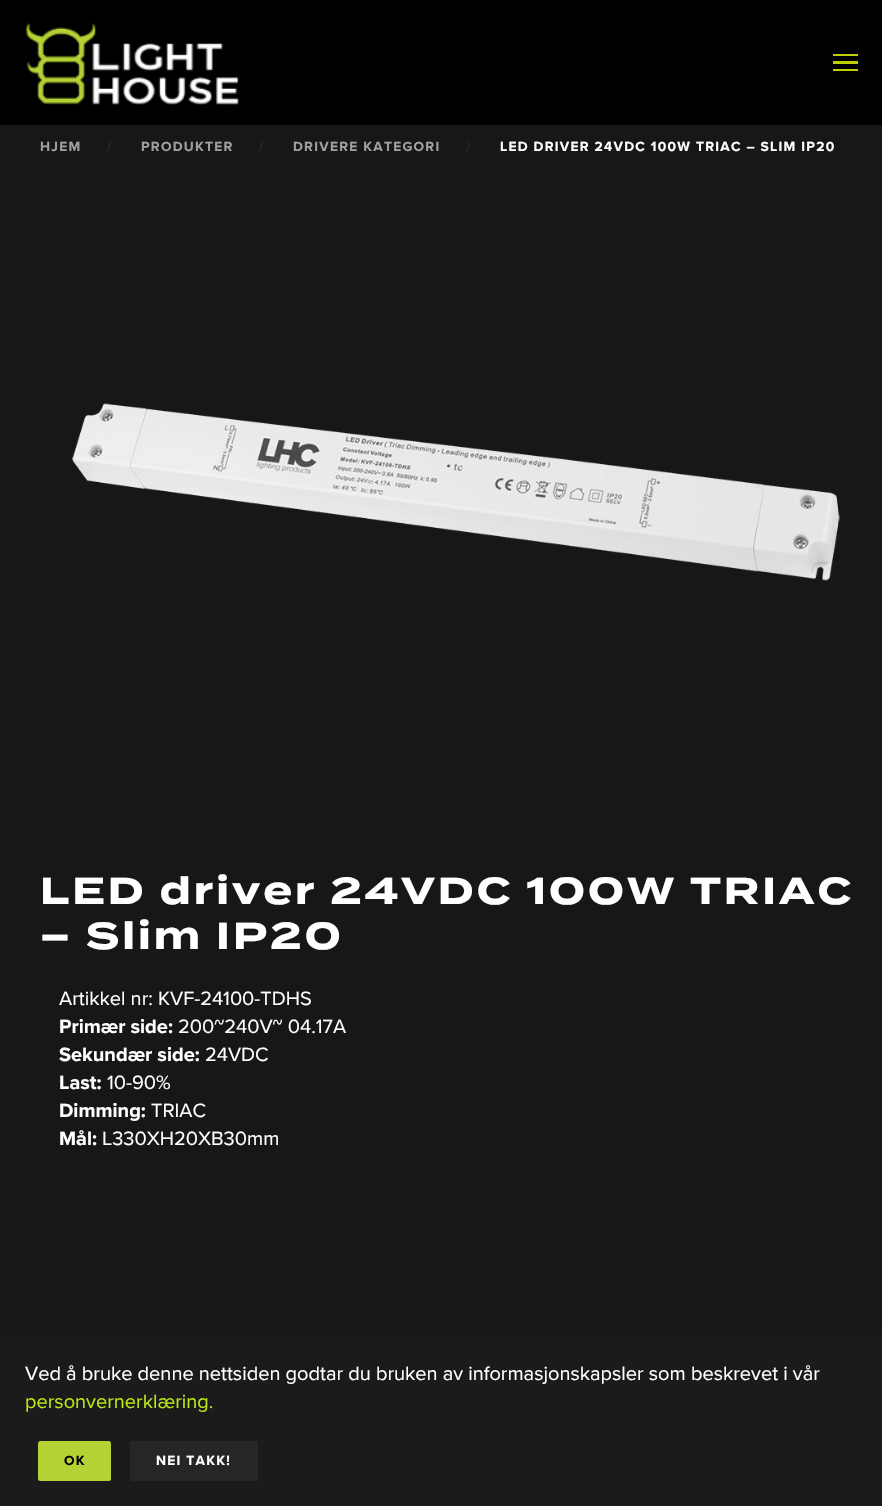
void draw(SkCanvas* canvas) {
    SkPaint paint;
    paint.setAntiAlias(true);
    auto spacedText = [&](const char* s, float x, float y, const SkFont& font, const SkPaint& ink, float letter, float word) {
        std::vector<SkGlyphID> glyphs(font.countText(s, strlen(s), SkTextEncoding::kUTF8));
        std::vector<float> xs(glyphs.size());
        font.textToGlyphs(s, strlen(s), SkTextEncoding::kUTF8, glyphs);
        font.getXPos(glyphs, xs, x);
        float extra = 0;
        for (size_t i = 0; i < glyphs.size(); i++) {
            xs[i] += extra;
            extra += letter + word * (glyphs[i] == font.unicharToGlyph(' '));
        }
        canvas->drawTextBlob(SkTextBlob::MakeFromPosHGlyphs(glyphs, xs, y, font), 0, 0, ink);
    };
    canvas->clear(0xFF171717);
    paint.setColor(0xFF000000);
    canvas->drawRect(SkRect::MakeXYWH(0, 0, 882, 125), paint);
    canvas->drawImageRect(SkImages::DeferredFromEncodedData(SkData::MakeFromFileName("img1.png")), SkRect::MakeXYWH(25, 22, 214, 83), SkSamplingOptions());
    paint.setColor(0xFFBED000);
    canvas->drawRect(SkRect::MakeXYWH(833, 54, 25, 2), paint);
    canvas->drawRect(SkRect::MakeXYWH(833, 61, 25, 3), paint);
    canvas->drawRect(SkRect::MakeXYWH(833, 69, 25, 2), paint);
    SkFont font1(fontMgr->matchFamilyStyle("Proxima Nova", SkFontStyle::Bold()), 13.75f);
    font1.setSubpixel(true);
    paint.setColor(0xFFA0A0A0);
    spacedText("HJEM", 40, 151, font1, paint, 1.25f, 0);
    SkFont font2(fontMgr->matchFamilyStyle("Proxima Nova", SkFontStyle::Normal()), 13.75f);
    font2.setSubpixel(true);
    paint.setColor(0xFF2D2D2D);
    canvas->drawString("/", 107, 151, font2, paint);
    paint.setColor(0xFFA0A0A0);
    spacedText("PRODUKTER", 141, 151, font1, paint, 1.25f, 0);
    paint.setColor(0xFF2D2D2D);
    canvas->drawString("/", 259, 151, font2, paint);
    paint.setColor(0xFFA0A0A0);
    spacedText("DRIVERE KATEGORI", 293, 151, font1, paint, 1.25f, 0);
    paint.setColor(0xFF2D2D2D);
    canvas->drawString("/", 466, 151, font2, paint);
    paint.setColor(0xFFFFFFFF);
    spacedText("LED DRIVER 24VDC 100W TRIAC – SLIM IP20", 500, 151, font1, paint, 1.25f, 0);
    canvas->drawImageRect(SkImages::DeferredFromEncodedData(SkData::MakeFromFileName("img2.png")), SkRect::MakeXYWH(72, 403, 768, 178), SkSamplingOptions());
    SkFont font3(fontMgr->matchFamilyStyle("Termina", SkFontStyle::Bold()), 37.5f);
    font3.setSubpixel(true);
    spacedText("LED driver 24VDC 100W TRIAC", 40, 904, font3, paint, 3.1f, 0);
    spacedText("– Slim IP20", 40, 949, font3, paint, 3.1f, 0);
    SkFont font4(fontMgr->matchFamilyStyle("Proxima Nova", SkFontStyle::Normal()), 20);
    font4.setSubpixel(true);
    canvas->drawString("Artikkel nr: KVF-24100-TDHS", 59, 1005, font4, paint);
    SkFont font5(fontMgr->matchFamilyStyle("Proxima Nova", SkFontStyle::Bold()), 20);
    font5.setSubpixel(true);
    canvas->drawString("Primær side:", 59, 1033, font5, paint);
    canvas->drawString("200~240V~ 04.17A", 178, 1033, font4, paint);
    canvas->drawString("Sekundær side:", 59, 1061, font5, paint);
    canvas->drawString("24VDC", 205, 1061, font4, paint);
    canvas->drawString("Last:", 59, 1089, font5, paint);
    canvas->drawString("10-90%", 107, 1089, font4, paint);
    canvas->drawString("Dimming:", 59, 1117, font5, paint);
    canvas->drawString("TRIAC", 151, 1117, font4, paint);
    canvas->drawString("Mål:", 59, 1145, font5, paint);
    canvas->drawString("L330XH20XB30mm", 102, 1145, font4, paint);
    paint.setColor(0xFF1B1B1B);
    canvas->drawRect(SkRect::MakeXYWH(0, 1335, 882, 171), paint);
    paint.setColor(0xFFFFFFFF);
    canvas->drawString("Ved å bruke denne nettsiden godtar du bruken av informasjonskapsler som beskrevet i vår", 25, 1380, font4, paint);
    paint.setColor(0xFFBAE81A);
    canvas->drawString("personvernerklæring.", 25, 1408, font4, paint);
    paint.setColor(0xFFB4D234);
    canvas->drawRoundRect(SkRect::MakeXYWH(38, 1441, 73, 40), 2.5f, 2.5f, paint);
    paint.setColor(0xFF000000);
    spacedText("OK", 64, 1465, font1, paint, 1.25f, 0);
    paint.setColor(0xFF262626);
    canvas->drawRoundRect(SkRect::MakeXYWH(130, 1441, 128, 40), 2.5f, 2.5f, paint);
    paint.setColor(0xFFFFFFFF);
    spacedText("NEI TAKK!", 156, 1465, font1, paint, 1.25f, 0);
}
